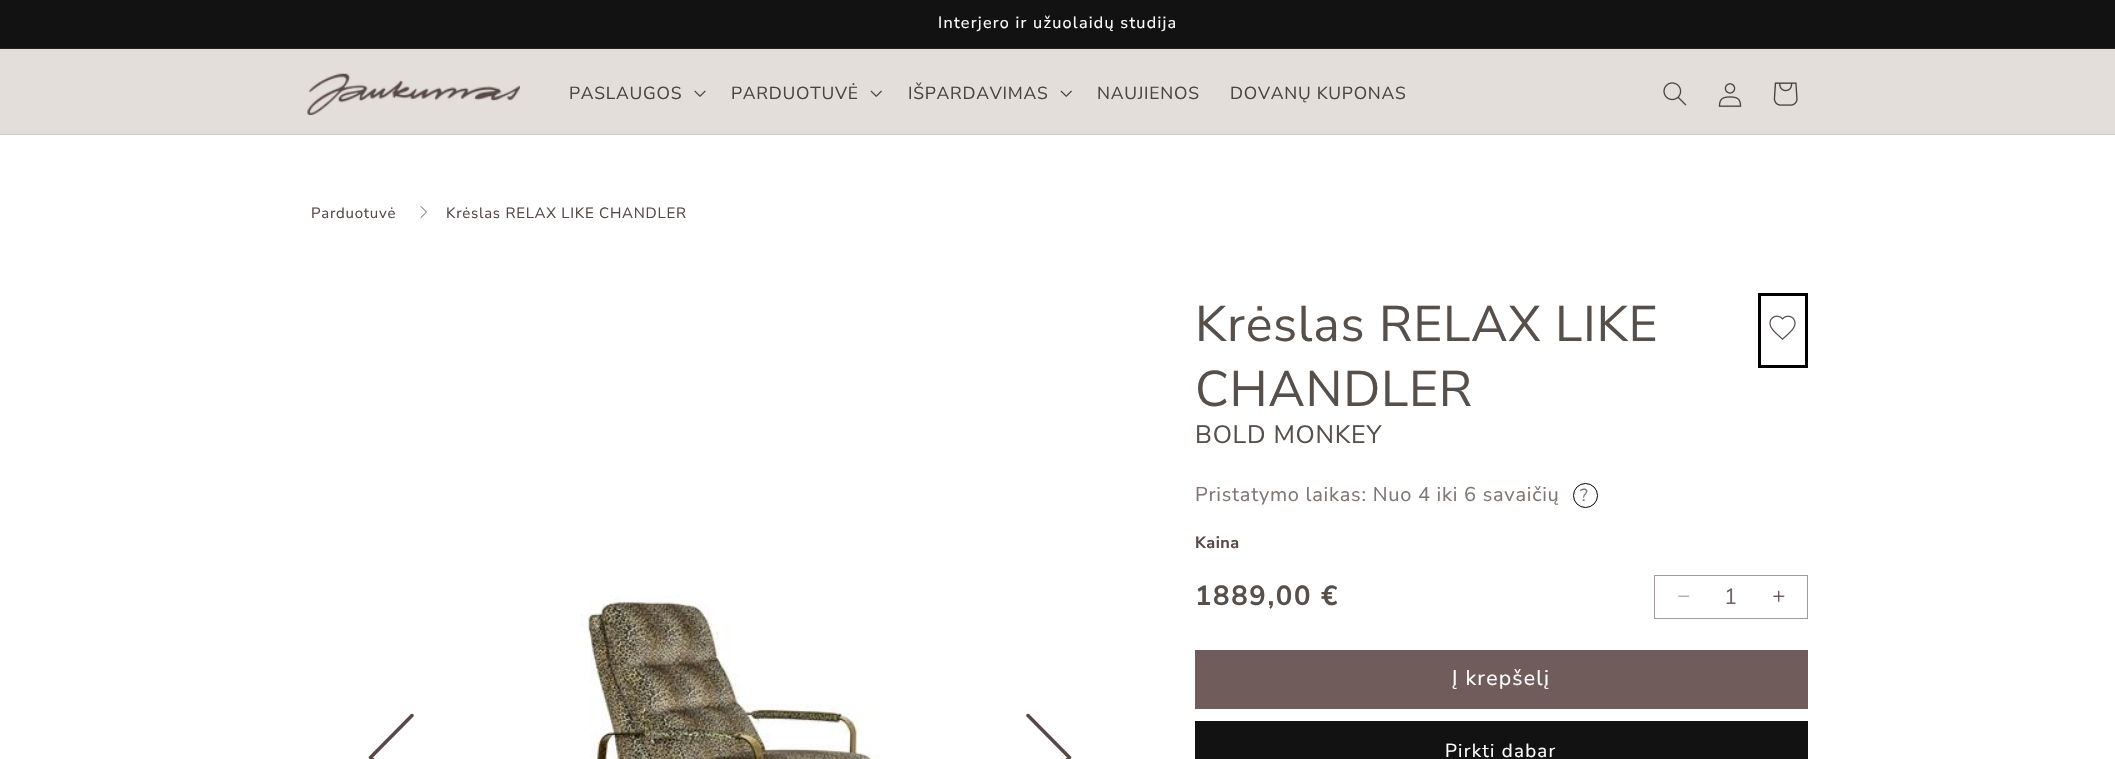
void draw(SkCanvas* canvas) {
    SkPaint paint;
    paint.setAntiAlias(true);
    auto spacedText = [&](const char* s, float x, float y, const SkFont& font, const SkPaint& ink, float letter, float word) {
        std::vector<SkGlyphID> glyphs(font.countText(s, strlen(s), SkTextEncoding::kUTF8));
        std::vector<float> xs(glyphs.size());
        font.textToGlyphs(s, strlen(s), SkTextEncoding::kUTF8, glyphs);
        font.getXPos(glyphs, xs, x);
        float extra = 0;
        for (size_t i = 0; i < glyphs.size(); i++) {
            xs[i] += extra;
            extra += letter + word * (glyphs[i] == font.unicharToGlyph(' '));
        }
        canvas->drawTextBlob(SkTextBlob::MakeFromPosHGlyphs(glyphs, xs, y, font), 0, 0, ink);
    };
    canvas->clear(0xFFFFFFFF);
    paint.setColor(0xFF121212);
    canvas->drawRect(SkRect::MakeXYWH(0, 0, 2115, 48), paint);
    paint.setColor(0xFF252525);
    canvas->drawRect(SkRect::MakeXYWH(0, 48, 2115, 1), paint);
    SkFont font1(fontMgr->matchFamilyStyle("Nunito Sans", SkFontStyle::Normal()), 16.25f);
    font1.setSubpixel(true);
    paint.setColor(0xFFFFFFFF);
    spacedText("Interjero ir užuolaidų studija", 938, 28, font1, paint, 1.25f, 0);
    paint.setColor(0xFFE3DEDA);
    canvas->drawRect(SkRect::MakeXYWH(0, 49, 2115, 85), paint);
    paint.setColor(0xFFD2CECA);
    canvas->drawRect(SkRect::MakeXYWH(0, 134, 2115, 1), paint);
    canvas->drawImageRect(SkImages::DeferredFromEncodedData(SkData::MakeFromFileName("img1.png")), SkRect::MakeXYWH(307, 73, 213, 42), SkSamplingOptions());
    SkFont font2(fontMgr->matchFamilyStyle("Nunito Sans", SkFontStyle::Normal()), 17.5f);
    font2.setSubpixel(true);
    paint.setColor(0xFF464544);
    spacedText("PASLAUGOS", 569, 99, font2, paint, 0.75f, 0);
    canvas->drawImageRect(SkImages::DeferredFromEncodedData(SkData::MakeFromFileName("img2.png")), SkRect::MakeXYWH(694, 90, 12, 7), SkSamplingOptions());
    spacedText("PARDUOTUVĖ", 731, 99, font2, paint, 0.75f, 0);
    canvas->drawImageRect(SkImages::DeferredFromEncodedData(SkData::MakeFromFileName("img3.png")), SkRect::MakeXYWH(870, 90, 12, 7), SkSamplingOptions());
    spacedText("IŠPARDAVIMAS", 908, 99, font2, paint, 0.75f, 0);
    canvas->drawImageRect(SkImages::DeferredFromEncodedData(SkData::MakeFromFileName("img3.png")), SkRect::MakeXYWH(1060, 90, 12, 7), SkSamplingOptions());
    spacedText("NAUJIENOS", 1097, 99, font2, paint, 0.75f, 0);
    spacedText("DOVANŲ KUPONAS", 1230, 99, font2, paint, 0.75f, 0);
    canvas->drawImageRect(SkImages::DeferredFromEncodedData(SkData::MakeFromFileName("img4.png")), SkRect::MakeXYWH(1663, 82, 24, 24), SkSamplingOptions());
    canvas->drawImageRect(SkImages::DeferredFromEncodedData(SkData::MakeFromFileName("img5.png")), SkRect::MakeXYWH(1718, 83, 24, 24), SkSamplingOptions());
    canvas->drawImageRect(SkImages::DeferredFromEncodedData(SkData::MakeFromFileName("img6.png")), SkRect::MakeXYWH(1773, 82, 25, 24), SkSamplingOptions());
    SkFont font3(fontMgr->matchFamilyStyle("Nunito Sans", SkFontStyle::Normal()), 15);
    font3.setSubpixel(true);
    paint.setColor(0xFF574845);
    spacedText("Parduotuvė", 311, 218, font3, paint, 0.75f, 0);
    paint.setStyle(SkPaint::kStroke_Style);
    paint.setStrokeWidth(0.9f);
    paint.setStrokeCap(SkPaint::kRound_Cap);
    paint.setStrokeJoin(SkPaint::kRound_Join);
    canvas->drawPath(SkPathBuilder().moveTo(421, 206.5f).lineTo(426.5f, 212).lineTo(421, 217.5f).detach(), paint);
    paint.setStyle(SkPaint::kFill_Style);
    spacedText("Krėslas RELAX LIKE CHANDLER", 446, 218, font3, paint, 0.75f, 0);
    paint.setStyle(SkPaint::kStroke_Style);
    paint.setStrokeWidth(3.5f);
    canvas->drawPath(SkPathBuilder().moveTo(412, 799.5f).lineTo(370.5f, 757.5f).lineTo(412, 715.5f).detach(), paint);
    canvas->drawImageRect(SkImages::DeferredFromEncodedData(SkData::MakeFromFileName("img7.png")), SkRect::MakeXYWH(580, 595, 300, 164), SkSamplingOptions());
    canvas->drawPath(SkPathBuilder().moveTo(1028, 715.5f).lineTo(1069.5f, 757.5f).lineTo(1028, 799.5f).detach(), paint);
    SkFont font4(fontMgr->matchFamilyStyle("Nunito Sans", SkFontStyle::Normal()), 50);
    font4.setSubpixel(true);
    paint.setStyle(SkPaint::kFill_Style);
    paint.setColor(0xFF574F4A);
    spacedText("Krėslas RELAX LIKE", 1195, 341, font4, paint, 0.75f, 0);
    spacedText("CHANDLER", 1195, 406, font4, paint, 0.75f, 0);
    paint.setStyle(SkPaint::kStroke_Style);
    paint.setStrokeWidth(3);
    paint.setStrokeCap(SkPaint::kButt_Cap);
    paint.setStrokeJoin(SkPaint::kMiter_Join);
    paint.setColor(0xFF000000);
    canvas->drawRect(SkRect::MakeXYWH(1759.5f, 294.5f, 47, 72), paint);
    canvas->drawImageRect(SkImages::DeferredFromEncodedData(SkData::MakeFromFileName("img8.png")), SkRect::MakeXYWH(1769, 315, 27, 25), SkSamplingOptions());
    SkFont font5(fontMgr->matchFamilyStyle("Nunito Sans", SkFontStyle::Normal()), 25);
    font5.setSubpixel(true);
    paint.setStyle(SkPaint::kFill_Style);
    paint.setColor(0xFF574F4A);
    spacedText("BOLD MONKEY", 1195, 443, font5, paint, 0.75f, 0);
    SkFont font6(fontMgr->matchFamilyStyle("Nunito Sans", SkFontStyle::Normal()), 20);
    font6.setSubpixel(true);
    paint.setColor(0xFF817674);
    spacedText("Pristatymo laikas: Nuo 4 iki 6 savaičių", 1195, 501, font6, paint, 0.75f, 0);
    paint.setStyle(SkPaint::kStroke_Style);
    paint.setStrokeWidth(1);
    paint.setColor(0xFF000000);
    canvas->drawCircle(1585.5f, 495.5f, 12, paint);
    paint.setStyle(SkPaint::kFill_Style);
    paint.setColor(0xFF817674);
    spacedText("?", 1580, 501, font2, paint, 0.75f, 0);
    SkFont font7(fontMgr->matchFamilyStyle("Nunito Sans", SkFontStyle::Bold()), 16.25f);
    font7.setSubpixel(true);
    paint.setColor(0xFF574845);
    spacedText("Kaina", 1195, 548, font7, paint, 0.5f, 0);
    SkFont font8(fontMgr->matchFamilyStyle("Nunito Sans", SkFontStyle::Bold()), 27.5f);
    font8.setSubpixel(true);
    paint.setColor(0xFF574F4A);
    spacedText("1889,00 €", 1195, 605, font8, paint, 1.6f, 0);
    canvas->drawImageRect(SkImages::DeferredFromEncodedData(SkData::MakeFromFileName("img9.png")), SkRect::MakeXYWH(1678, 595, 12, 2), SkSamplingOptions());
    canvas->drawImageRect(SkImages::DeferredFromEncodedData(SkData::MakeFromFileName("img10.png")), SkRect::MakeXYWH(1773, 590, 12, 12), SkSamplingOptions());
    paint.setStyle(SkPaint::kStroke_Style);
    paint.setColor(0xFFA39A99);
    canvas->drawRect(SkRect::MakeXYWH(1654.5f, 575.5f, 153, 43), paint);
    SkFont font9(fontMgr->matchFamilyStyle("Nunito Sans", SkFontStyle::Normal()), 22);
    font9.setSubpixel(true);
    paint.setStyle(SkPaint::kFill_Style);
    paint.setColor(0xFF706965);
    canvas->drawString("1", 1724, 604, font9, paint);
    paint.setColor(0xFF705D5B);
    canvas->drawRect(SkRect::MakeXYWH(1195, 650, 613, 59), paint);
    SkFont font10(fontMgr->matchFamilyStyle("Nunito Sans", SkFontStyle::Normal()), 21.25f);
    font10.setSubpixel(true);
    paint.setColor(0xFFFFFFFF);
    spacedText("Į krepšelį", 1452, 685, font10, paint, 1.25f, 0);
    paint.setColor(0xFF121212);
    canvas->drawRect(SkRect::MakeXYWH(1195, 721, 613, 38), paint);
    SkFont font11(fontMgr->matchFamilyStyle("Nunito Sans", SkFontStyle::Normal()), 18.75f);
    font11.setSubpixel(true);
    paint.setColor(0xFFFFFFFF);
    spacedText("Pirkti dabar", 1445, 757, font11, paint, 1.25f, 0);
}
